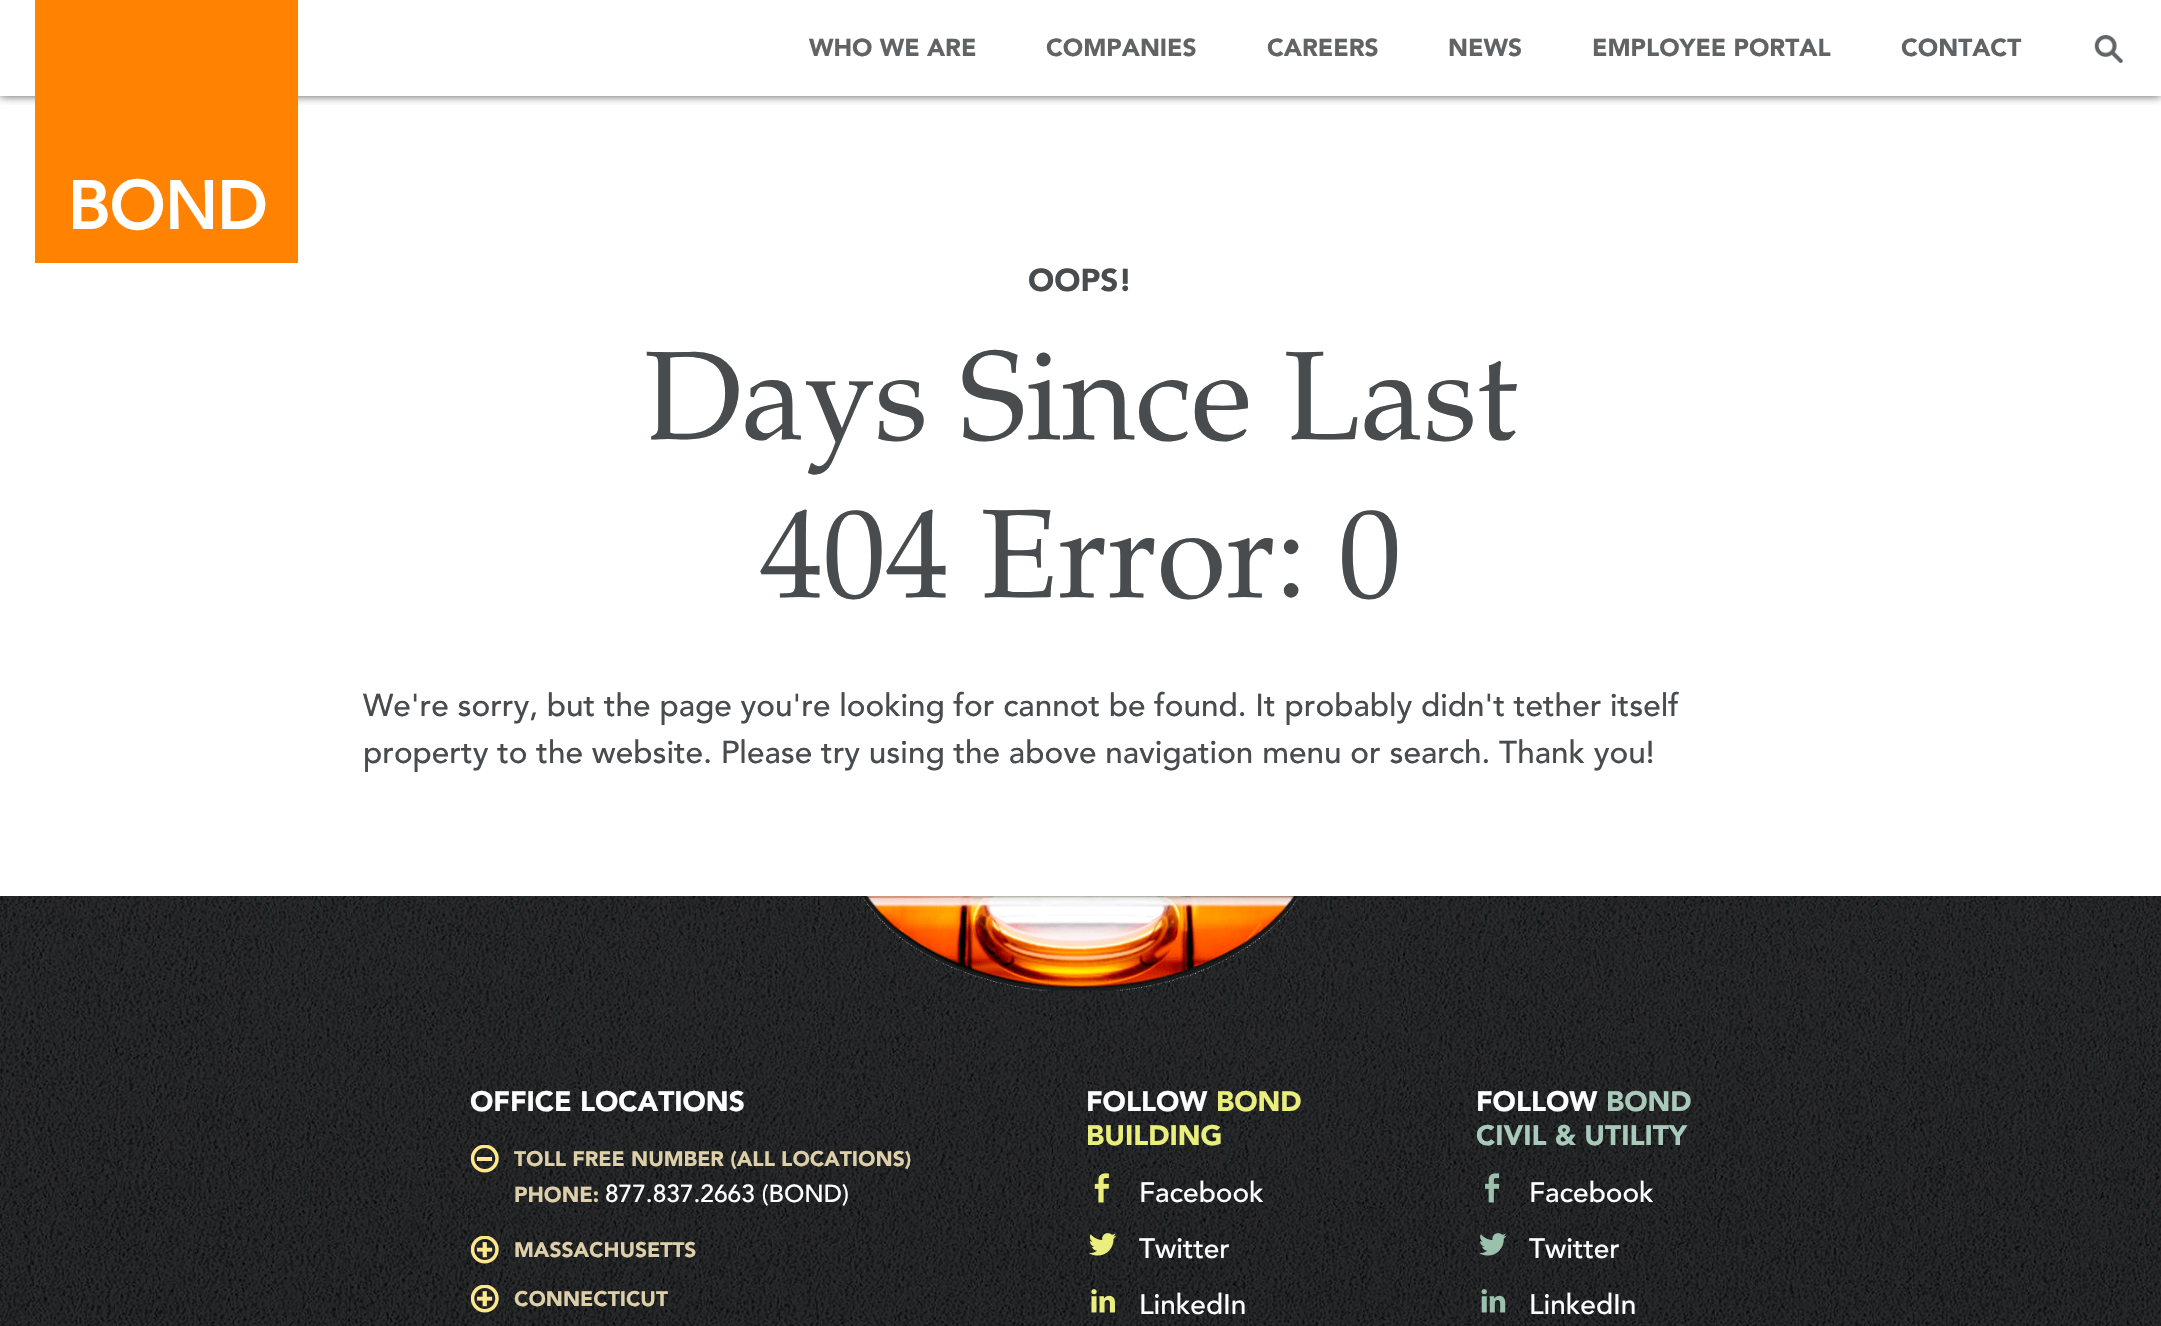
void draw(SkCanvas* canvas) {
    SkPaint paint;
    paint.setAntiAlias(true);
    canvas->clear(0xFFFFFFFF);
    canvas->save();
    canvas->clipRect(SkRect::MakeXYWH(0, 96, 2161, 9));
    paint.setColor(0xFF555555);
    paint.setMaskFilter(SkMaskFilter::MakeBlur(kNormal_SkBlurStyle, 4.5f));
    canvas->drawRect(SkRect::MakeXYWH(0, 0, 2161, 96), paint);
    paint.setMaskFilter(nullptr);
    canvas->restore();
    SkFont font1(fontMgr->matchFamilyStyle("Avenir", SkFontStyle(900, SkFontStyle::kNormal_Width, SkFontStyle::kUpright_Slant)), 24.5f);
    font1.setSubpixel(true);
    paint.setColor(0xFF616466);
    canvas->drawString("WHO WE ARE", 809, 56, font1, paint);
    canvas->drawString("COMPANIES", 1046, 56, font1, paint);
    canvas->drawString("CAREERS", 1267, 56, font1, paint);
    canvas->drawString("NEWS", 1448, 56, font1, paint);
    canvas->drawString("EMPLOYEE PORTAL", 1592, 56, font1, paint);
    canvas->drawString("CONTACT", 1901, 56, font1, paint);
    canvas->drawImageRect(SkImages::DeferredFromEncodedData(SkData::MakeFromFileName("img1.png")), SkRect::MakeXYWH(2094, 35, 29, 28), SkSamplingOptions());
    paint.setColor(0xFFFF8200);
    canvas->drawRect(SkRect::MakeXYWH(35, 0, 263, 263), paint);
    SkFont font2(fontMgr->matchFamilyStyle("Avenir", SkFontStyle::Bold()), 66.5f);
    font2.setSubpixel(true);
    paint.setColor(0xFFFFFFFF);
    canvas->drawString("BOND", 67, 229, font2, paint);
    SkFont font3(fontMgr->matchFamilyStyle("Avenir", SkFontStyle(900, SkFontStyle::kNormal_Width, SkFontStyle::kUpright_Slant)), 31.5f);
    font3.setSubpixel(true);
    paint.setColor(0xFF484C4E);
    canvas->drawString("OOPS!", 1028, 291, font3, paint);
    SkFont font4(fontMgr->matchFamilyStyle("Palatino", SkFontStyle::Normal()), 126);
    font4.setSubpixel(true);
    canvas->drawString("Days Since Last", 644, 439, font4, paint);
    canvas->drawString("404 Error: 0", 760, 597, font4, paint);
    SkFont font5(fontMgr->matchFamilyStyle("Avenir", SkFontStyle(500, SkFontStyle::kNormal_Width, SkFontStyle::kUpright_Slant)), 31.5f);
    font5.setSubpixel(true);
    canvas->drawString("We're sorry, but the page you're looking for cannot be found. It probably didn't tether itself", 363, 716, font5, paint);
    canvas->drawString("property to the website. Please try using the above navigation menu or search. Thank you!", 363, 763, font5, paint);
    canvas->drawImageRect(SkImages::DeferredFromEncodedData(SkData::MakeFromFileName("img2.png")), SkRect::MakeXYWH(0, 896, 2161, 430), SkSamplingOptions());
    SkFont font6(fontMgr->matchFamilyStyle("Avenir", SkFontStyle(900, SkFontStyle::kNormal_Width, SkFontStyle::kUpright_Slant)), 28);
    font6.setSubpixel(true);
    paint.setColor(0xFFFFFFFF);
    canvas->drawString("OFFICE LOCATIONS", 470, 1111, font6, paint);
    canvas->drawImageRect(SkImages::DeferredFromEncodedData(SkData::MakeFromFileName("img3.png")), SkRect::MakeXYWH(471, 1145, 28, 28), SkSamplingOptions());
    SkFont font7(fontMgr->matchFamilyStyle("Avenir", SkFontStyle(900, SkFontStyle::kNormal_Width, SkFontStyle::kUpright_Slant)), 21);
    font7.setSubpixel(true);
    paint.setColor(0xFFDCCFA9);
    canvas->drawString("TOLL FREE NUMBER (ALL LOCATIONS)", 514, 1166, font7, paint);
    SkFont font8(fontMgr->matchFamilyStyle("Avenir", SkFontStyle(900, SkFontStyle::kNormal_Width, SkFontStyle::kUpright_Slant)), 21.5f);
    font8.setSubpixel(true);
    canvas->drawString("PHONE:", 514, 1202, font8, paint);
    SkFont font9(fontMgr->matchFamilyStyle("Avenir", SkFontStyle(500, SkFontStyle::kNormal_Width, SkFontStyle::kUpright_Slant)), 24.5f);
    font9.setSubpixel(true);
    paint.setColor(0xFFFFFFFF);
    canvas->drawString("877.837.2663 (BOND)", 605, 1202, font9, paint);
    canvas->drawImageRect(SkImages::DeferredFromEncodedData(SkData::MakeFromFileName("img4.png")), SkRect::MakeXYWH(471, 1236, 28, 28), SkSamplingOptions());
    paint.setColor(0xFFDCCFA9);
    canvas->drawString("MASSACHUSETTS", 514, 1257, font7, paint);
    canvas->drawImageRect(SkImages::DeferredFromEncodedData(SkData::MakeFromFileName("img5.png")), SkRect::MakeXYWH(471, 1285, 28, 28), SkSamplingOptions());
    canvas->drawString("CONNECTICUT", 514, 1306, font7, paint);
    paint.setColor(0xFFFFFFFF);
    canvas->drawString("FOLLOW", 1086, 1111, font6, paint);
    paint.setColor(0xFFE9EE7C);
    canvas->drawString("BOND", 1216, 1111, font6, paint);
    canvas->drawString("BUILDING", 1086, 1145, font6, paint);
    canvas->drawImageRect(SkImages::DeferredFromEncodedData(SkData::MakeFromFileName("img6.png")), SkRect::MakeXYWH(1094, 1173, 15, 30), SkSamplingOptions());
    SkFont font10(fontMgr->matchFamilyStyle("Avenir", SkFontStyle(500, SkFontStyle::kNormal_Width, SkFontStyle::kUpright_Slant)), 28);
    font10.setSubpixel(true);
    paint.setColor(0xFFFFFFFF);
    canvas->drawString("Facebook", 1139, 1202, font10, paint);
    canvas->drawImageRect(SkImages::DeferredFromEncodedData(SkData::MakeFromFileName("img7.png")), SkRect::MakeXYWH(1089, 1233, 28, 23), SkSamplingOptions());
    canvas->drawString("Twitter", 1139, 1258, font10, paint);
    canvas->drawImageRect(SkImages::DeferredFromEncodedData(SkData::MakeFromFileName("img8.png")), SkRect::MakeXYWH(1091, 1289, 24, 24), SkSamplingOptions());
    canvas->drawString("LinkedIn", 1139, 1314, font10, paint);
    canvas->drawString("FOLLOW", 1476, 1111, font6, paint);
    paint.setColor(0xFFA8CABA);
    canvas->drawString("BOND", 1606, 1111, font6, paint);
    canvas->drawString("CIVIL & UTILITY", 1476, 1145, font6, paint);
    canvas->drawImageRect(SkImages::DeferredFromEncodedData(SkData::MakeFromFileName("img9.png")), SkRect::MakeXYWH(1485, 1173, 15, 30), SkSamplingOptions());
    paint.setColor(0xFFFFFFFF);
    canvas->drawString("Facebook", 1529, 1202, font10, paint);
    canvas->drawImageRect(SkImages::DeferredFromEncodedData(SkData::MakeFromFileName("img10.png")), SkRect::MakeXYWH(1479, 1233, 28, 23), SkSamplingOptions());
    canvas->drawString("Twitter", 1529, 1258, font10, paint);
    canvas->drawImageRect(SkImages::DeferredFromEncodedData(SkData::MakeFromFileName("img11.png")), SkRect::MakeXYWH(1481, 1289, 25, 24), SkSamplingOptions());
    canvas->drawString("LinkedIn", 1529, 1314, font10, paint);
}
